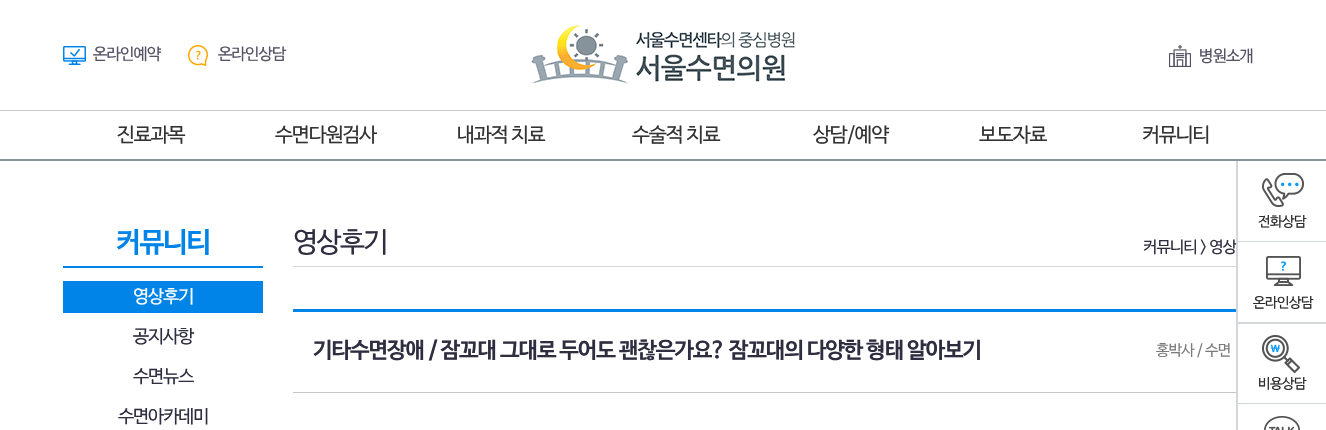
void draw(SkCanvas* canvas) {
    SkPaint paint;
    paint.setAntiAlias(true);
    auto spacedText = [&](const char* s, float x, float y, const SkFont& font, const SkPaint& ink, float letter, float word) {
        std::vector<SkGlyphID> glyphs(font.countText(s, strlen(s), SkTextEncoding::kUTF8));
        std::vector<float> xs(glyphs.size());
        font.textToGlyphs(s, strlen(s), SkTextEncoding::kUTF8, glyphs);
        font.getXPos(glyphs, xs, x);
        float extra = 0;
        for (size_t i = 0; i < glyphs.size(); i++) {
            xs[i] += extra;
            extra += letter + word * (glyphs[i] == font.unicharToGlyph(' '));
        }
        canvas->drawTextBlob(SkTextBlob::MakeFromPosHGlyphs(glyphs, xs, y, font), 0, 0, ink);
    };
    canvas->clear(0xFFFFFFFF);
    canvas->drawImageRect(SkImages::DeferredFromEncodedData(SkData::MakeFromFileName("img1.png")), SkRect::MakeXYWH(63, 46, 23, 19), SkSamplingOptions());
    SkFont font1(fontMgr->matchFamilyStyle("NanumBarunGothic", SkFontStyle::Normal()), 16);
    font1.setSubpixel(true);
    paint.setColor(0xFF555265);
    spacedText("온라인예약", 93, 59, font1, paint, -0.75f, 0);
    canvas->drawImageRect(SkImages::DeferredFromEncodedData(SkData::MakeFromFileName("img2.png")), SkRect::MakeXYWH(188, 45, 20, 21), SkSamplingOptions());
    spacedText("온라인상담", 218, 59, font1, paint, -0.75f, 0);
    canvas->drawImageRect(SkImages::DeferredFromEncodedData(SkData::MakeFromFileName("img3.png")), SkRect::MakeXYWH(531, 25, 264, 59), SkSamplingOptions());
    canvas->drawImageRect(SkImages::DeferredFromEncodedData(SkData::MakeFromFileName("img4.png")), SkRect::MakeXYWH(1169, 45, 22, 22), SkSamplingOptions());
    spacedText("병원소개", 1199, 61, font1, paint, -0.75f, 0);
    paint.setColor(0xFFCCCCCC);
    canvas->drawRect(SkRect::MakeXYWH(0, 110, 1326, 1), paint);
    SkFont font2(fontMgr->matchFamilyStyle("NanumBarunGothic", SkFontStyle::Normal()), 20);
    font2.setSubpixel(true);
    paint.setColor(0xFF333333);
    spacedText("진료과목", 117, 141, font2, paint, -1, 0);
    spacedText("수면다원검사", 275, 141, font2, paint, -1, 0);
    spacedText("내과적 치료", 457, 141, font2, paint, -1, 0);
    spacedText("수술적 치료", 632, 141, font2, paint, -1, 0);
    spacedText("상담/예약", 813, 141, font2, paint, -1, 0);
    spacedText("보도자료", 979, 141, font2, paint, -1, 0);
    spacedText("커뮤니티", 1142, 141, font2, paint, -1, 0);
    paint.setColor(0xFF86939B);
    canvas->drawRect(SkRect::MakeXYWH(0, 159, 1326, 2), paint);
    paint.setColor(0xFF0084E7);
    canvas->drawRect(SkRect::MakeXYWH(63, 266, 200, 2), paint);
    SkFont font3(fontMgr->matchFamilyStyle("NanumBarunGothic", SkFontStyle::Bold()), 28);
    font3.setSubpixel(true);
    spacedText("커뮤니티", 116, 251, font3, paint, -1.5f, 0);
    canvas->drawRect(SkRect::MakeXYWH(63, 281, 200, 32), paint);
    SkFont font4(fontMgr->matchFamilyStyle("NanumBarunGothic", SkFontStyle::Normal()), 18);
    font4.setSubpixel(true);
    paint.setColor(0xFFFFFFFF);
    spacedText("영상후기", 133, 302, font4, paint, -1, 0);
    paint.setColor(0xFF2E2E40);
    spacedText("공지사항", 133, 342, font4, paint, -1, 0);
    spacedText("수면뉴스", 133, 382, font4, paint, -1, 0);
    spacedText("수면아카데미", 118, 422, font4, paint, -1, 0);
    paint.setColor(0xFFD7D7D7);
    canvas->drawRect(SkRect::MakeXYWH(293, 266, 943, 1), paint);
    SkFont font5(fontMgr->matchFamilyStyle("NanumBarunGothic", SkFontStyle::Normal()), 28);
    font5.setSubpixel(true);
    paint.setColor(0xFF2E2E40);
    spacedText("영상후기", 293, 251, font5, paint, -1.5f, 0);
    spacedText("커뮤니티 > 영상", 1143, 252, font1, paint, -0.75f, 0);
    paint.setColor(0xFF0084E7);
    canvas->drawRect(SkRect::MakeXYWH(293, 309, 943, 3), paint);
    paint.setColor(0xFFC7C7C7);
    canvas->drawRect(SkRect::MakeXYWH(293, 392, 943, 1), paint);
    SkFont font6(fontMgr->matchFamilyStyle("NanumBarunGothic", SkFontStyle::Bold()), 22);
    font6.setSubpixel(true);
    paint.setColor(0xFF2E2E40);
    spacedText("기타수면장애 / 잠꼬대 그대로 두어도 괜찮은가요? 잠꼬대의 다양한 형태 알아보기", 313, 357, font6, paint, -1.1f, 0);
    SkFont font7(fontMgr->matchFamilyStyle("NanumBarunGothic", SkFontStyle::Normal()), 15);
    font7.setSubpixel(true);
    paint.setColor(0xFF7B7B7B);
    spacedText("홍박사 / 수면", 1156, 355, font7, paint, -0.75f, 0);
    paint.setColor(0xFFD2D7DA);
    canvas->drawRect(SkRect::MakeXYWH(1236, 161, 1, 269), paint);
    canvas->drawImageRect(SkImages::DeferredFromEncodedData(SkData::MakeFromFileName("img5.png")), SkRect::MakeXYWH(1237, 161, 67, 80), SkSamplingOptions());
    SkFont font8(fontMgr->matchFamilyStyle("NanumBarunGothic", SkFontStyle::Normal()), 14);
    font8.setSubpixel(true);
    paint.setColor(0xFF2C2C2C);
    spacedText("전화상담", 1258, 226, font8, paint, -0.5f, 0);
    paint.setColor(0xFFD2D7DA);
    canvas->drawRect(SkRect::MakeXYWH(1237, 241, 89, 1), paint);
    canvas->drawImageRect(SkImages::DeferredFromEncodedData(SkData::MakeFromFileName("img6.png")), SkRect::MakeXYWH(1237, 242, 64, 80), SkSamplingOptions());
    paint.setColor(0xFF2C2C2C);
    spacedText("온라인상담", 1253, 307, font8, paint, -0.5f, 0);
    paint.setColor(0xFFD2D7DA);
    canvas->drawRect(SkRect::MakeXYWH(1237, 322, 89, 1), paint);
    canvas->drawImageRect(SkImages::DeferredFromEncodedData(SkData::MakeFromFileName("img7.png")), SkRect::MakeXYWH(1237, 323, 89, 80), SkSamplingOptions());
    paint.setColor(0xFF2C2C2C);
    spacedText("비용상담", 1258, 388, font8, paint, -0.5f, 0);
    paint.setColor(0xFFD2D7DA);
    canvas->drawRect(SkRect::MakeXYWH(1237, 403, 89, 1), paint);
    canvas->drawImageRect(SkImages::DeferredFromEncodedData(SkData::MakeFromFileName("img8.png")), SkRect::MakeXYWH(1237, 404, 63, 26), SkSamplingOptions());
}
